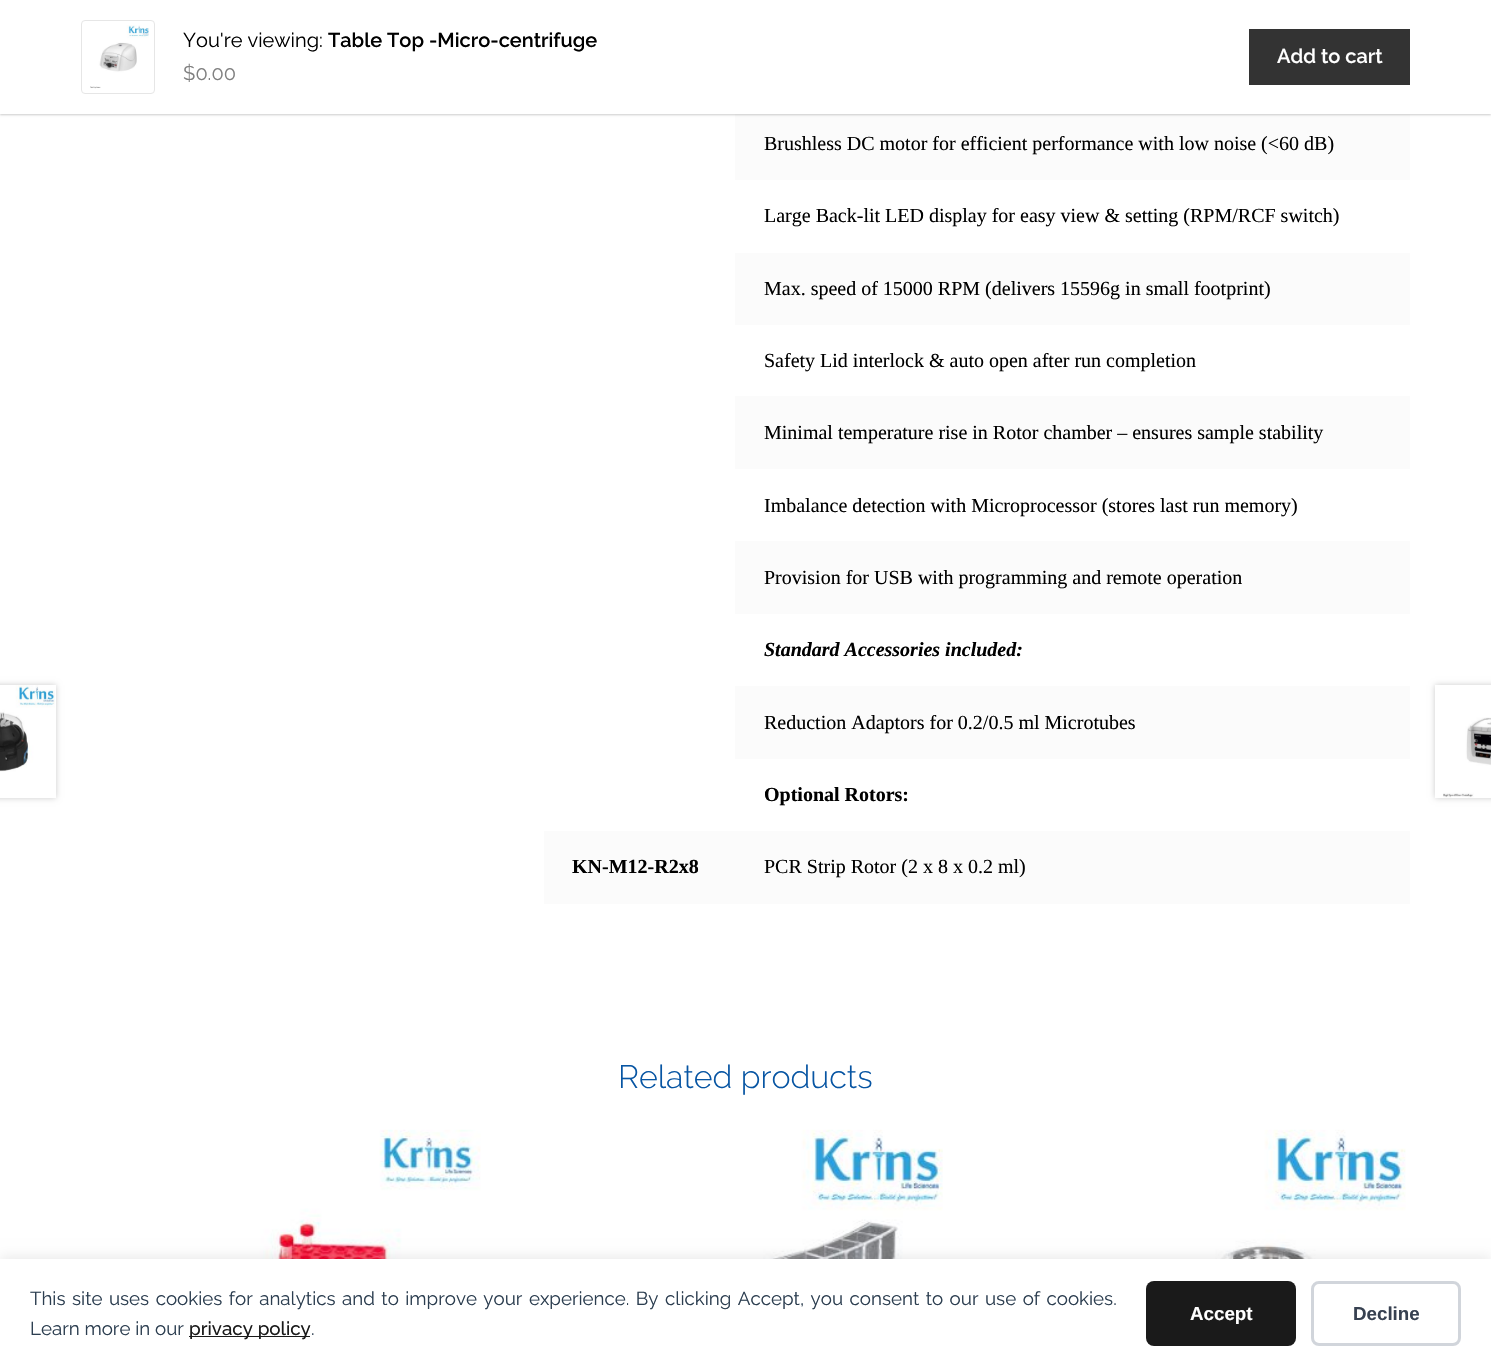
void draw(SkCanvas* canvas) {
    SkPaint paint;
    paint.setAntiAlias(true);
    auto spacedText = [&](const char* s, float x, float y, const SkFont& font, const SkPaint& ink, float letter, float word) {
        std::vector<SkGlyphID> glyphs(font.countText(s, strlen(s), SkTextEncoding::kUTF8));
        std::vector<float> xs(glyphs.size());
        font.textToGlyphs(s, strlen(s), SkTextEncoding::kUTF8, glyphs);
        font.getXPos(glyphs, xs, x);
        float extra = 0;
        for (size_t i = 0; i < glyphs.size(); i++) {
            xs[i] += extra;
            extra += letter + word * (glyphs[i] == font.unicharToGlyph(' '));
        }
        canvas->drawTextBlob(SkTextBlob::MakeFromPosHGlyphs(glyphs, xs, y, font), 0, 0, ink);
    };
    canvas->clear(0xFFFFFFFF);
    paint.setColor(0xFFFBFBFB);
    canvas->drawRect(SkRect::MakeXYWH(735, 114, 675, 66), paint);
    paint.setColor(0x33000000);
    paint.setMaskFilter(SkMaskFilter::MakeBlur(kNormal_SkBlurStyle, 1));
    canvas->drawRect(SkRect::MakeXYWH(0, 1, 1491, 114), paint);
    paint.setMaskFilter(nullptr);
    paint.setColor(0xFFFFFFFF);
    canvas->drawRect(SkRect::MakeXYWH(0, 0, 1491, 114), paint);
    paint.setStyle(SkPaint::kStroke_Style);
    paint.setStrokeWidth(1);
    paint.setColor(0xFFE6E6E6);
    canvas->drawRoundRect(SkRect::MakeXYWH(81.5f, 20.5f, 73, 73), 3.5f, 3.5f, paint);
    canvas->drawImageRect(SkImages::DeferredFromEncodedData(SkData::MakeFromFileName("img1.png")), SkRect::MakeXYWH(90, 25, 59, 64), SkSamplingOptions());
    SkFont font1(fontMgr->matchFamilyStyle("Raleway", SkFontStyle::Normal()), 20);
    font1.setSubpixel(true);
    paint.setStyle(SkPaint::kFill_Style);
    paint.setColor(0xFF000000);
    canvas->drawString("You're viewing:", 183, 47, font1, paint);
    SkFont font2(fontMgr->matchFamilyStyle("Raleway", SkFontStyle(600, SkFontStyle::kNormal_Width, SkFontStyle::kUpright_Slant)), 20);
    font2.setSubpixel(true);
    canvas->drawString("Table Top -Micro-centrifuge", 328, 47, font2, paint);
    paint.setColor(0xFF808080);
    canvas->drawString("$0.00", 183, 80, font1, paint);
    paint.setColor(0xFF333333);
    canvas->drawRect(SkRect::MakeXYWH(1249, 29, 161, 56), paint);
    paint.setColor(0xFFFFFFFF);
    canvas->drawString("Add to cart", 1277, 63, font2, paint);
    SkFont font3(fontMgr->matchFamilyStyle("Liberation Serif", SkFontStyle::Normal()), 20);
    font3.setSubpixel(true);
    paint.setColor(0xFF000000);
    canvas->drawString("Brushless DC motor for efficient performance with low noise (<60 dB)", 764, 150, font3, paint);
    canvas->drawString("Large Back-lit LED display for easy view & setting (RPM/RCF switch)", 764, 222, font3, paint);
    paint.setColor(0xFFFBFBFB);
    canvas->drawRect(SkRect::MakeXYWH(735, 253, 675, 72), paint);
    paint.setColor(0xFF000000);
    canvas->drawString("Max. speed of 15000 RPM (delivers 15596g in small footprint)", 764, 295, font3, paint);
    canvas->drawString("Safety Lid interlock & auto open after run completion", 764, 367, font3, paint);
    paint.setColor(0xFFFBFBFB);
    canvas->drawRect(SkRect::MakeXYWH(735, 396, 675, 73), paint);
    paint.setColor(0xFF000000);
    canvas->drawString("Minimal temperature rise in Rotor chamber – ensures sample stability", 764, 439, font3, paint);
    canvas->drawString("Imbalance detection with Microprocessor (stores last run memory)", 764, 512, font3, paint);
    paint.setColor(0xFFFBFBFB);
    canvas->drawRect(SkRect::MakeXYWH(735, 541, 675, 73), paint);
    paint.setColor(0xFF000000);
    canvas->drawString("Provision for USB with programming and remote operation", 764, 584, font3, paint);
    SkFont font4(fontMgr->matchFamilyStyle("Liberation Serif", SkFontStyle::BoldItalic()), 20);
    font4.setSubpixel(true);
    canvas->drawString("Standard Accessories included:", 764, 656, font4, paint);
    paint.setColor(0xFFFBFBFB);
    canvas->drawRect(SkRect::MakeXYWH(735, 686, 675, 73), paint);
    paint.setColor(0xFF000000);
    canvas->drawString("Reduction Adaptors for 0.2/0.5 ml Microtubes", 764, 729, font3, paint);
    SkFont font5(fontMgr->matchFamilyStyle("Liberation Serif", SkFontStyle::Bold()), 20);
    font5.setSubpixel(true);
    canvas->drawString("Optional Rotors:", 764, 801, font5, paint);
    paint.setColor(0xFFFBFBFB);
    canvas->drawRect(SkRect::MakeXYWH(544, 831, 866, 73), paint);
    paint.setColor(0xFF000000);
    canvas->drawString("KN-M12-R2x8", 572, 873, font5, paint);
    canvas->drawString("PCR Strip Rotor (2 x 8 x 0.2 ml)", 764, 873, font3, paint);
    paint.setColor(0x33000000);
    paint.setMaskFilter(SkMaskFilter::MakeBlur(kNormal_SkBlurStyle, 3));
    canvas->drawRect(SkRect::MakeXYWH(-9, 685, 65, 113), paint);
    paint.setMaskFilter(nullptr);
    paint.setColor(0xFFFFFFFF);
    canvas->drawRect(SkRect::MakeXYWH(0, 685, 56, 113), paint);
    canvas->drawImageRect(SkImages::DeferredFromEncodedData(SkData::MakeFromFileName("img2.png")), SkRect::MakeXYWH(0, 685, 55, 87), SkSamplingOptions());
    paint.setColor(0x33000000);
    paint.setMaskFilter(SkMaskFilter::MakeBlur(kNormal_SkBlurStyle, 3));
    canvas->drawRect(SkRect::MakeXYWH(1435, 685, 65, 113), paint);
    paint.setMaskFilter(nullptr);
    paint.setColor(0xFFFFFFFF);
    canvas->drawRect(SkRect::MakeXYWH(1435, 685, 56, 113), paint);
    canvas->drawImageRect(SkImages::DeferredFromEncodedData(SkData::MakeFromFileName("img3.png")), SkRect::MakeXYWH(1443, 717, 48, 81), SkSamplingOptions());
    SkFont font6(fontMgr->matchFamilyStyle("Raleway", SkFontStyle(300, SkFontStyle::kNormal_Width, SkFontStyle::kUpright_Slant)), 32.25f);
    font6.setSubpixel(true);
    paint.setColor(0xFF0755A3);
    canvas->drawString("Related products", 618, 1088, font6, paint);
    canvas->drawImageRect(SkImages::DeferredFromEncodedData(SkData::MakeFromFileName("img4.png")), SkRect::MakeXYWH(140, 1129, 341, 130), SkSamplingOptions());
    canvas->drawImageRect(SkImages::DeferredFromEncodedData(SkData::MakeFromFileName("img5.png")), SkRect::MakeXYWH(594, 1129, 349, 130), SkSamplingOptions());
    canvas->drawImageRect(SkImages::DeferredFromEncodedData(SkData::MakeFromFileName("img6.png")), SkRect::MakeXYWH(1089, 1129, 317, 130), SkSamplingOptions());
    paint.setColor(0x14000000);
    paint.setMaskFilter(SkMaskFilter::MakeBlur(kNormal_SkBlurStyle, 6));
    canvas->drawRect(SkRect::MakeXYWH(0, 1256, 1491, 110), paint);
    paint.setMaskFilter(nullptr);
    paint.setColor(0xFFFFFFFF);
    canvas->drawRect(SkRect::MakeXYWH(0, 1259, 1491, 109), paint);
    SkFont font7(fontMgr->matchFamilyStyle("Raleway", SkFontStyle::Normal()), 18.75f);
    font7.setSubpixel(true);
    paint.setColor(0xFF2C3E50);
    spacedText("This site uses cookies for analytics and to improve your experience. By clicking Accept, you consent to our use of cookies.", 30, 1305, font7, paint, 0, 1.7f);
    canvas->drawString("Learn more in our", 30, 1335, font7, paint);
    paint.setColor(0xFF1A1A1A);
    canvas->drawRect(SkRect::MakeXYWH(189, 1336, 121, 1), paint);
    SkFont font8(fontMgr->matchFamilyStyle("Raleway", SkFontStyle(500, SkFontStyle::kNormal_Width, SkFontStyle::kUpright_Slant)), 18.75f);
    font8.setSubpixel(true);
    canvas->drawString("privacy policy", 189, 1335, font8, paint);
    paint.setColor(0xFF2C3E50);
    canvas->drawString(".", 311, 1335, font7, paint);
    paint.setColor(0xFF1A1A1A);
    canvas->drawRoundRect(SkRect::MakeXYWH(1146, 1281, 150, 65), 8, 8, paint);
    SkFont font9(fontMgr->matchFamilyStyle("Liberation Sans", SkFontStyle::Bold()), 18.75f);
    font9.setSubpixel(true);
    paint.setColor(0xFFFFFFFF);
    canvas->drawString("Accept", 1190, 1320, font9, paint);
    paint.setStyle(SkPaint::kStroke_Style);
    paint.setStrokeWidth(3);
    paint.setColor(0xFFD1D5DB);
    canvas->drawRoundRect(SkRect::MakeXYWH(1312.5f, 1282.5f, 147, 62), 6.5f, 6.5f, paint);
    paint.setStyle(SkPaint::kFill_Style);
    paint.setColor(0xFF374151);
    canvas->drawString("Decline", 1353, 1320, font9, paint);
}
